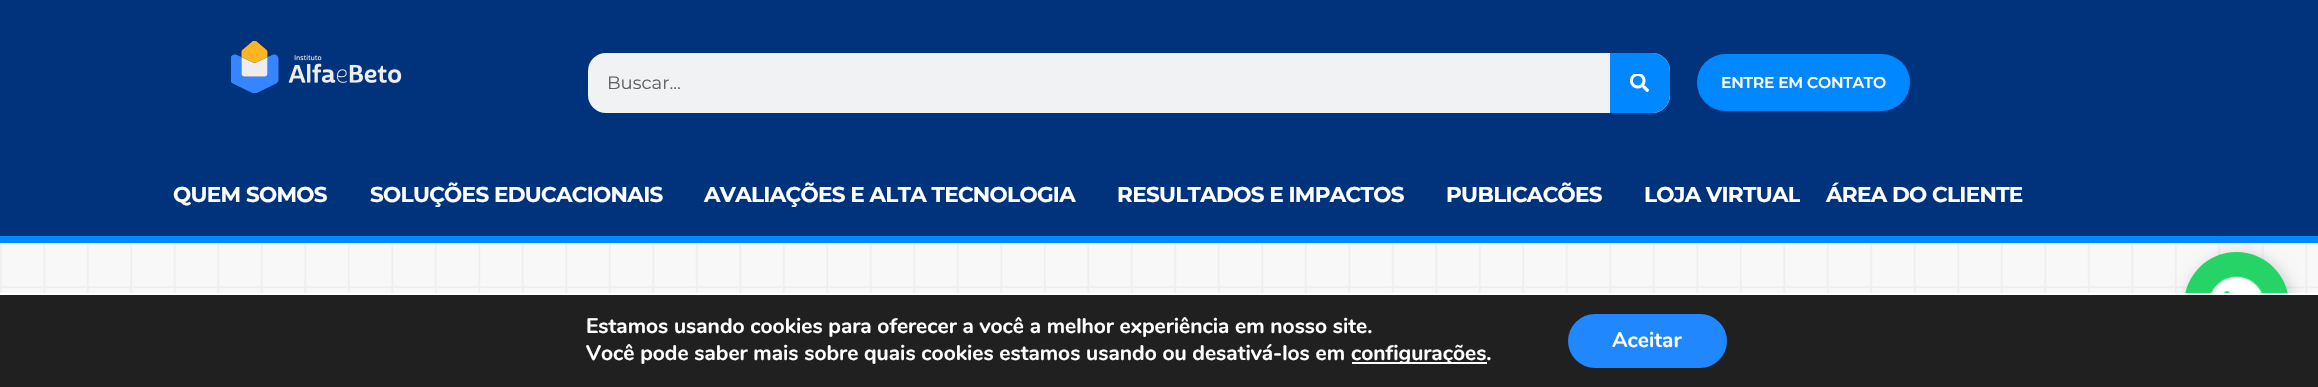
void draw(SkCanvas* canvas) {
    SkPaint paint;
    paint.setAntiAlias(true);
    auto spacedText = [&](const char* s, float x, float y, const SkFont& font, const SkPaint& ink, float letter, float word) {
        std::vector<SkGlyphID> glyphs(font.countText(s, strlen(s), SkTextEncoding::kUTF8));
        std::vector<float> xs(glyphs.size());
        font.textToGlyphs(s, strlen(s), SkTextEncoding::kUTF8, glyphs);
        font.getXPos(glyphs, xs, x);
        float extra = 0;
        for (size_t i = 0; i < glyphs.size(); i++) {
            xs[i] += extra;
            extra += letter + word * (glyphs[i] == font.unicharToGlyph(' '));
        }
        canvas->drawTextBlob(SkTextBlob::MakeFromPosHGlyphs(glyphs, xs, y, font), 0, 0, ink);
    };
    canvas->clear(0xFFF8F8F8);
    paint.setColor(0xFF01337C);
    canvas->drawRect(SkRect::MakeXYWH(0, 0, 2318, 236), paint);
    paint.setColor(0xFF0187FF);
    canvas->drawRect(SkRect::MakeXYWH(0, 236, 2318, 7), paint);
    canvas->drawImageRect(SkImages::DeferredFromEncodedData(SkData::MakeFromFileName("img1.png")), SkRect::MakeXYWH(231, 41, 171, 52), SkSamplingOptions());
    paint.setColor(0xFFF1F2F3);
    canvas->drawRoundRect(SkRect::MakeXYWH(588, 53, 1082, 60), 18, 18, paint);
    SkFont font1(fontMgr->matchFamilyStyle("Montserrat", SkFontStyle(100, SkFontStyle::kNormal_Width, SkFontStyle::kUpright_Slant)), 18);
    font1.setSubpixel(true);
    paint.setColor(0xFF606161);
    canvas->drawString("Buscar...", 607, 89, font1, paint);
    paint.setColor(0xFF0187FF);
    canvas->drawPath(SkPathBuilder().moveTo(1610, 53).lineTo(1652, 53).cubicTo(1662, 53, 1670, 61, 1670, 71).lineTo(1670, 95).cubicTo(1670, 105, 1662, 113, 1652, 113).lineTo(1610, 113).close().detach(), paint);
    canvas->drawImageRect(SkImages::DeferredFromEncodedData(SkData::MakeFromFileName("img2.png")), SkRect::MakeXYWH(1629, 74, 20, 18), SkSamplingOptions());
    canvas->drawRoundRect(SkRect::MakeXYWH(1697, 54, 213, 57), 28.5f, 28.5f, paint);
    SkFont font2(fontMgr->matchFamilyStyle("Montserrat", SkFontStyle(600, SkFontStyle::kNormal_Width, SkFontStyle::kUpright_Slant)), 15.6f);
    font2.setSubpixel(true);
    paint.setColor(0xFFFFFFFF);
    spacedText("ENTRE EM CONTATO", 1721, 88, font2, paint, -0.25f, 0);
    SkFont font3(fontMgr->matchFamilyStyle("Montserrat", SkFontStyle::Bold()), 21.5f);
    font3.setSubpixel(true);
    spacedText("QUEM SOMOS", 173, 202, font3, paint, -0.65f, 0);
    spacedText("SOLUÇÕES EDUCACIONAIS", 370, 202, font3, paint, -0.65f, 0);
    spacedText("AVALIAÇÕES E ALTA TECNOLOGIA", 704, 202, font3, paint, -0.65f, 0);
    spacedText("RESULTADOS E IMPACTOS", 1117, 202, font3, paint, -0.65f, 0);
    spacedText("PUBLICACÕES", 1446, 202, font3, paint, -0.65f, 0);
    spacedText("LOJA VIRTUAL", 1644, 202, font3, paint, -0.65f, 0);
    paint.setColor(0xFF01337C);
    canvas->drawRect(SkRect::MakeXYWH(1800, 199, 1, 3), paint);
    paint.setColor(0xFFFFFFFF);
    spacedText("ÁREA DO CLIENTE", 1826, 202, font3, paint, -0.65f, 0);
    canvas->drawImageRect(SkImages::DeferredFromEncodedData(SkData::MakeFromFileName("img4.png")), SkRect::MakeXYWH(0, 243, 2318, 50), SkSamplingOptions());
    paint.setColor(0x33000000);
    paint.setMaskFilter(SkMaskFilter::MakeBlur(kNormal_SkBlurStyle, 7.5f));
    canvas->drawRoundRect(SkRect::MakeXYWH(2187, 255, 105, 105), 52.5f, 52.5f, paint);
    paint.setMaskFilter(nullptr);
    paint.setColor(0xFF25D366);
    canvas->drawCircle(2236.5f, 304.5f, 52.5f, paint);
    canvas->drawImageRect(SkImages::DeferredFromEncodedData(SkData::MakeFromFileName("img3.png")), SkRect::MakeXYWH(2211, 276, 51, 17), SkSamplingOptions());
    paint.setColor(0xFF202020);
    canvas->drawRect(SkRect::MakeXYWH(0, 295, 2318, 92), paint);
    paint.setColor(0xFFFFFFFF);
    canvas->drawRect(SkRect::MakeXYWH(0, 293, 2318, 2), paint);
    SkFont font4(fontMgr->matchFamilyStyle("Nunito", SkFontStyle::Bold()), 21);
    font4.setSubpixel(true);
    canvas->drawString("Estamos usando cookies para oferecer a você a melhor experiência em nosso site.", 586, 333, font4, paint);
    canvas->drawString("Você pode saber mais sobre quais cookies estamos usando ou desativá-los em", 586, 360, font4, paint);
    canvas->drawRect(SkRect::MakeXYWH(1352, 362, 135, 2), paint);
    canvas->drawString("configurações.", 1351, 360, font4, paint);
    paint.setColor(0xFF2087FF);
    canvas->drawRoundRect(SkRect::MakeXYWH(1568, 314, 159, 54), 27, 27, paint);
    paint.setColor(0xFFFFFFFF);
    canvas->drawString("Aceitar", 1612, 347, font4, paint);
}
